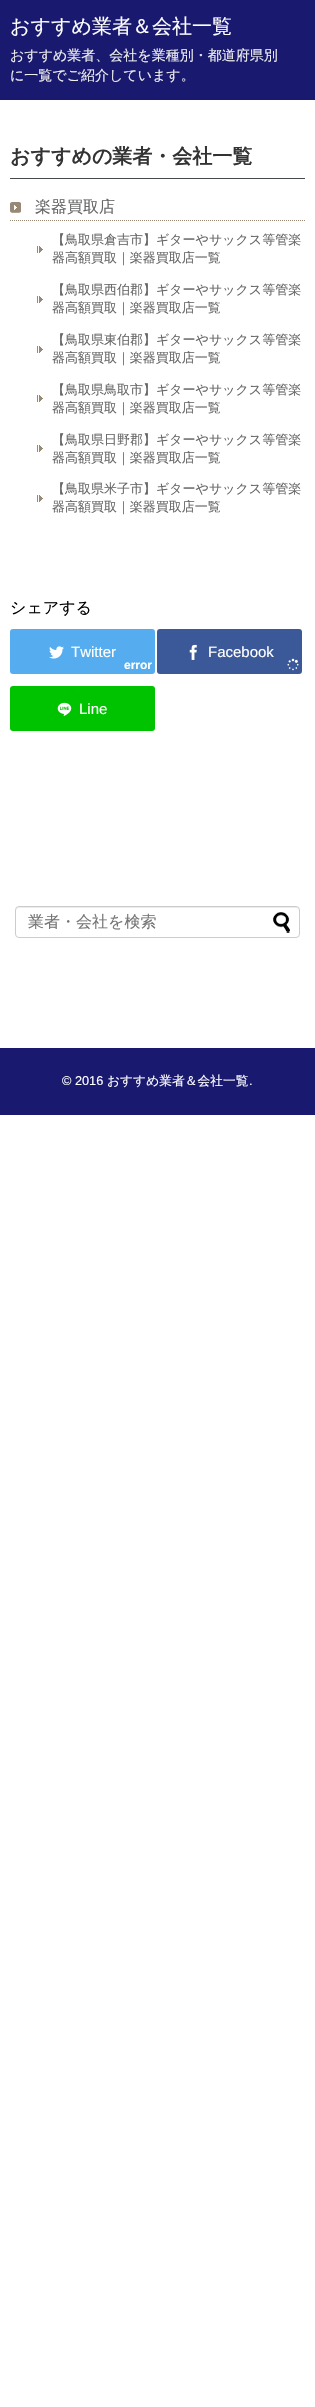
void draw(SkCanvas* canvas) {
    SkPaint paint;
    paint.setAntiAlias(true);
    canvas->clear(0xFFFFFFFF);
    paint.setColor(0xFF191970);
    canvas->drawRect(SkRect::MakeXYWH(0, 0, 315, 100), paint);
    SkFont font1(fontMgr->matchFamilyStyle("WenQuanYi Zen Hei", SkFontStyle(500, SkFontStyle::kNormal_Width, SkFontStyle::kUpright_Slant)), 20);
    font1.setSubpixel(true);
    paint.setColor(0xFFFFFFFF);
    canvas->drawString("おすすめ業者＆会社一覧", 10, 33, font1, paint);
    SkFont font2(fontMgr->matchFamilyStyle("WenQuanYi Zen Hei", SkFontStyle(500, SkFontStyle::kNormal_Width, SkFontStyle::kUpright_Slant)), 14);
    font2.setSubpixel(true);
    paint.setColor(0xFFEEEEEE);
    canvas->drawString("おすすめ業者、会社を業種別・都道府県別", 10, 60, font2, paint);
    canvas->drawString("に一覧でご紹介しています。", 10, 80, font2, paint);
    paint.setColor(0xFF474A4D);
    canvas->drawRect(SkRect::MakeXYWH(10, 178, 295, 1), paint);
    SkFont font3(fontMgr->matchFamilyStyle("WenQuanYi Zen Hei", SkFontStyle::Bold()), 20);
    font3.setSubpixel(true);
    paint.setColor(0xFF333333);
    canvas->drawString("おすすめの業者・会社一覧", 10, 163, font3, paint);
    canvas->drawImageRect(SkImages::DeferredFromEncodedData(SkData::MakeFromFileName("img1.png")), SkRect::MakeXYWH(10, 220, 295, 1), SkSamplingOptions());
    canvas->drawImageRect(SkImages::DeferredFromEncodedData(SkData::MakeFromFileName("img2.png")), SkRect::MakeXYWH(10, 202, 11, 11), SkSamplingOptions());
    SkFont font4(fontMgr->matchFamilyStyle("WenQuanYi Zen Hei", SkFontStyle(500, SkFontStyle::kNormal_Width, SkFontStyle::kUpright_Slant)), 16);
    font4.setSubpixel(true);
    paint.setColor(0xFF666666);
    canvas->drawString("楽器買取店", 35, 212, font4, paint);
    canvas->drawImageRect(SkImages::DeferredFromEncodedData(SkData::MakeFromFileName("img3.png")), SkRect::MakeXYWH(37, 246, 6, 7), SkSamplingOptions());
    SkFont font5(fontMgr->matchFamilyStyle("WenQuanYi Zen Hei", SkFontStyle(500, SkFontStyle::kNormal_Width, SkFontStyle::kUpright_Slant)), 13);
    font5.setSubpixel(true);
    canvas->drawString("【鳥取県倉吉市】ギターやサックス等管楽", 52, 244, font5, paint);
    canvas->drawString("器高額買取｜楽器買取店一覧", 52, 262, font5, paint);
    canvas->drawImageRect(SkImages::DeferredFromEncodedData(SkData::MakeFromFileName("img3.png")), SkRect::MakeXYWH(37, 296, 6, 7), SkSamplingOptions());
    canvas->drawString("【鳥取県西伯郡】ギターやサックス等管楽", 52, 294, font5, paint);
    canvas->drawString("器高額買取｜楽器買取店一覧", 52, 312, font5, paint);
    canvas->drawImageRect(SkImages::DeferredFromEncodedData(SkData::MakeFromFileName("img3.png")), SkRect::MakeXYWH(37, 346, 6, 7), SkSamplingOptions());
    canvas->drawString("【鳥取県東伯郡】ギターやサックス等管楽", 52, 344, font5, paint);
    canvas->drawString("器高額買取｜楽器買取店一覧", 52, 362, font5, paint);
    canvas->drawImageRect(SkImages::DeferredFromEncodedData(SkData::MakeFromFileName("img3.png")), SkRect::MakeXYWH(37, 395, 6, 7), SkSamplingOptions());
    canvas->drawString("【鳥取県鳥取市】ギターやサックス等管楽", 52, 394, font5, paint);
    canvas->drawString("器高額買取｜楽器買取店一覧", 52, 412, font5, paint);
    canvas->drawImageRect(SkImages::DeferredFromEncodedData(SkData::MakeFromFileName("img3.png")), SkRect::MakeXYWH(37, 445, 6, 7), SkSamplingOptions());
    canvas->drawString("【鳥取県日野郡】ギターやサックス等管楽", 52, 444, font5, paint);
    canvas->drawString("器高額買取｜楽器買取店一覧", 52, 462, font5, paint);
    canvas->drawImageRect(SkImages::DeferredFromEncodedData(SkData::MakeFromFileName("img3.png")), SkRect::MakeXYWH(37, 495, 6, 7), SkSamplingOptions());
    canvas->drawString("【鳥取県米子市】ギターやサックス等管楽", 52, 493, font5, paint);
    canvas->drawString("器高額買取｜楽器買取店一覧", 52, 511, font5, paint);
    paint.setColor(0xFF000000);
    canvas->drawString("シェアする", 10, 613, font4, paint);
    paint.setColor(0xFF55ACEE);
    canvas->drawRoundRect(SkRect::MakeXYWH(10, 629, 145, 45), 3, 3, paint);
    canvas->drawImageRect(SkImages::DeferredFromEncodedData(SkData::MakeFromFileName("img4.png")), SkRect::MakeXYWH(49, 646, 15, 13), SkSamplingOptions());
    SkFont font6(fontMgr->matchFamilyStyle("Liberation Sans", SkFontStyle::Normal()), 15);
    font6.setSubpixel(true);
    paint.setColor(0xFFFFFFFF);
    canvas->drawString("Twitter", 71, 657, font6, paint);
    SkFont font7(fontMgr->matchFamilyStyle("Liberation Sans", SkFontStyle::Bold()), 12);
    font7.setSubpixel(true);
    canvas->drawString("error", 124, 669, font7, paint);
    paint.setColor(0xFF3B5998);
    canvas->drawRoundRect(SkRect::MakeXYWH(157, 629, 145, 45), 3, 3, paint);
    canvas->drawImageRect(SkImages::DeferredFromEncodedData(SkData::MakeFromFileName("img5.png")), SkRect::MakeXYWH(189, 644, 8, 16), SkSamplingOptions());
    paint.setColor(0xFFFFFFFF);
    canvas->drawString("Facebook", 208, 657, font6, paint);
    canvas->drawImageRect(SkImages::DeferredFromEncodedData(SkData::MakeFromFileName("img6.png")), SkRect::MakeXYWH(287, 658, 12, 13), SkSamplingOptions());
    paint.setColor(0xFF00C300);
    canvas->drawRoundRect(SkRect::MakeXYWH(10, 686, 145, 45), 3, 3, paint);
    canvas->drawImageRect(SkImages::DeferredFromEncodedData(SkData::MakeFromFileName("img7.png")), SkRect::MakeXYWH(57, 702, 15, 14), SkSamplingOptions());
    paint.setColor(0xFFFFFFFF);
    canvas->drawString("Line", 79, 714, font6, paint);
    paint.setColor(0xFFECECEC);
    canvas->drawPath(SkPathBuilder().moveTo(19, 908).lineTo(296, 908).cubicTo(298, 908, 299, 909, 299, 911).lineTo(299, 910).cubicTo(299, 908, 298, 907, 296, 907).lineTo(19, 907).cubicTo(17, 907, 16, 908, 16, 910).lineTo(16, 911).cubicTo(16, 909, 17, 908, 19, 908).close().detach(), paint);
    paint.setStyle(SkPaint::kStroke_Style);
    paint.setStrokeWidth(1);
    paint.setColor(0xFFCCCCCC);
    canvas->drawRoundRect(SkRect::MakeXYWH(15.5f, 906.5f, 284, 31), 3.5f, 3.5f, paint);
    paint.setStyle(SkPaint::kFill_Style);
    paint.setColor(0xFF757575);
    canvas->drawString("業者・会社を検索", 28, 927, font4, paint);
    canvas->drawImageRect(SkImages::DeferredFromEncodedData(SkData::MakeFromFileName("img8.png")), SkRect::MakeXYWH(273, 912, 17, 21), SkSamplingOptions());
    paint.setColor(0xFF191970);
    canvas->drawRect(SkRect::MakeXYWH(0, 1048, 315, 67), paint);
    SkFont font8(fontMgr->matchFamilyStyle("Liberation Sans", SkFontStyle::Normal()), 12.75f);
    font8.setSubpixel(true);
    paint.setColor(0xFFFFFFFF);
    canvas->drawString("© 2016", 62, 1085, font8, paint);
    SkFont font9(fontMgr->matchFamilyStyle("WenQuanYi Zen Hei", SkFontStyle(500, SkFontStyle::kNormal_Width, SkFontStyle::kUpright_Slant)), 12.75f);
    font9.setSubpixel(true);
    canvas->drawString("おすすめ業者＆会社一覧", 107, 1085, font9, paint);
    canvas->drawString(".", 249, 1085, font8, paint);
}
